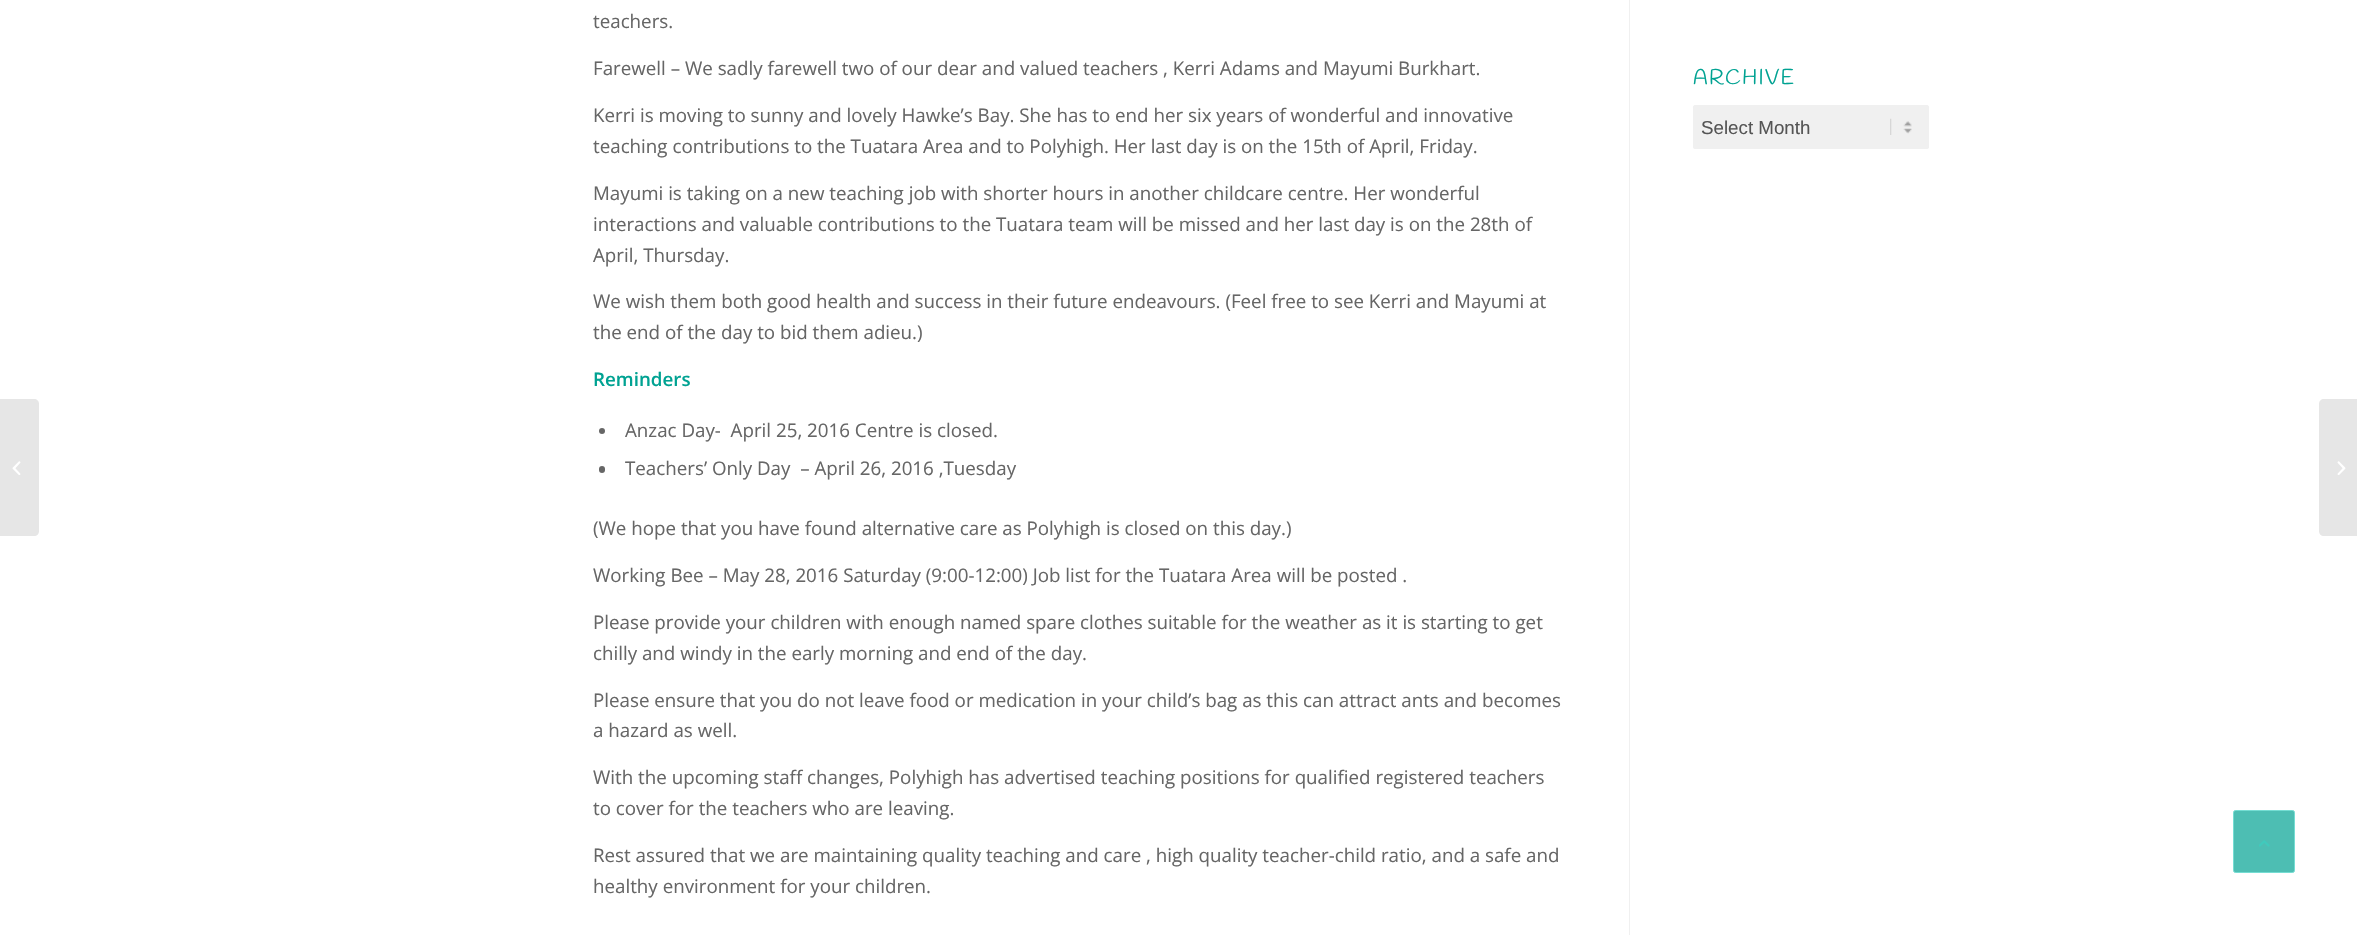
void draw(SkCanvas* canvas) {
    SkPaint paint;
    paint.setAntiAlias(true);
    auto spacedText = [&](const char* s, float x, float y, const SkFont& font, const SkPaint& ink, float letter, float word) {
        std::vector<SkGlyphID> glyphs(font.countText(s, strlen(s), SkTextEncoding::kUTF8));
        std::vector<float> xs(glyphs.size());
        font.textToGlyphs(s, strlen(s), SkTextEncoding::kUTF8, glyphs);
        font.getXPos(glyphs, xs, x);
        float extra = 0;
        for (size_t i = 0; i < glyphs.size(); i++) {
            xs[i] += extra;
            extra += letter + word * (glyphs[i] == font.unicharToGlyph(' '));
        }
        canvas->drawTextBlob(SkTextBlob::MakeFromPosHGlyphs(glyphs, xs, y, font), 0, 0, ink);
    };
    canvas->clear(0xFFFFFFFF);
    paint.setColor(0xFFE6E6E6);
    canvas->drawPath(SkPathBuilder().moveTo(0, 399).lineTo(34, 399).cubicTo(37, 399, 39, 401, 39, 404).lineTo(39, 531).cubicTo(39, 534, 37, 536, 34, 536).lineTo(0, 536).close().detach(), paint);
    canvas->drawImageRect(SkImages::DeferredFromEncodedData(SkData::MakeFromFileName("img1.png")), SkRect::MakeXYWH(12, 461, 9, 14), SkSamplingOptions());
    paint.setColor(0xFFF0F0F0);
    canvas->drawRect(SkRect::MakeXYWH(1629, 0, 1, 935), paint);
    SkFont font1(fontMgr->matchFamilyStyle("Open Sans", SkFontStyle::Normal()), 18.75f);
    font1.setSubpixel(true);
    paint.setColor(0xFF666666);
    canvas->drawString("teachers.", 593, 28, font1, paint);
    canvas->drawString("Farewell – We sadly farewell two of our dear and valued teachers , Kerri Adams and Mayumi Burkhart.", 593, 75, font1, paint);
    canvas->drawString("Kerri is moving to sunny and lovely Hawke’s Bay. She has to end her six years of wonderful and innovative", 593, 122, font1, paint);
    canvas->drawString("teaching contributions to the Tuatara Area and to Polyhigh. Her last day is on the 15th of April, Friday.", 593, 153, font1, paint);
    canvas->drawString("Mayumi is taking on a new teaching job with shorter hours in another childcare centre. Her wonderful", 593, 200, font1, paint);
    canvas->drawString("interactions and valuable contributions to the Tuatara team will be missed and her last day is on the 28th of", 593, 231, font1, paint);
    canvas->drawString("April, Thursday.", 593, 262, font1, paint);
    canvas->drawString("We wish them both good health and success in their future endeavours. (Feel free to see Kerri and Mayumi at", 593, 308, font1, paint);
    canvas->drawString("the end of the day to bid them adieu.)", 593, 339, font1, paint);
    SkFont font2(fontMgr->matchFamilyStyle("Open Sans", SkFontStyle(600, SkFontStyle::kNormal_Width, SkFontStyle::kUpright_Slant)), 18.75f);
    font2.setSubpixel(true);
    paint.setColor(0xFF00A292);
    canvas->drawString("Reminders", 593, 386, font2, paint);
    paint.setColor(0xFF666666);
    canvas->drawCircle(602, 431, 3, paint);
    canvas->drawString("Anzac Day-  April 25, 2016 Centre is closed.", 625, 437, font1, paint);
    canvas->drawRoundRect(SkRect::MakeXYWH(599, 466, 6, 7), 3, 3, paint);
    canvas->drawString("Teachers’ Only Day  – April 26, 2016 ,Tuesday", 625, 475, font1, paint);
    canvas->drawString("(We hope that you have found alternative care as Polyhigh is closed on this day.)", 593, 535, font1, paint);
    canvas->drawString("Working Bee – May 28, 2016 Saturday (9:00-12:00) Job list for the Tuatara Area will be posted .", 593, 582, font1, paint);
    canvas->drawString("Please provide your children with enough named spare clothes suitable for the weather as it is starting to get", 593, 629, font1, paint);
    canvas->drawString("chilly and windy in the early morning and end of the day.", 593, 660, font1, paint);
    canvas->drawString("Please ensure that you do not leave food or medication in your child’s bag as this can attract ants and becomes", 593, 707, font1, paint);
    canvas->drawString("a hazard as well.", 593, 737, font1, paint);
    canvas->drawString("With the upcoming staff changes, Polyhigh has advertised teaching positions for qualified registered teachers", 593, 784, font1, paint);
    canvas->drawString("to cover for the teachers who are leaving.", 593, 815, font1, paint);
    canvas->drawString("Rest assured that we are maintaining quality teaching and care , high quality teacher-child ratio, and a safe and", 593, 862, font1, paint);
    canvas->drawString("healthy environment for your children.", 593, 893, font1, paint);
    SkFont font3(fontMgr->matchFamilyStyle("Handlee", SkFontStyle::Normal()), 21.25f);
    font3.setSubpixel(true);
    paint.setColor(0xFF00A292);
    spacedText("ARCHIVE", 1693, 84, font3, paint, 1.25f, 0);
    paint.setColor(0xFFF0F0F0);
    canvas->drawRoundRect(SkRect::MakeXYWH(1693, 105, 236, 44), 2.5f, 2.5f, paint);
    canvas->drawImageRect(SkImages::DeferredFromEncodedData(SkData::MakeFromFileName("img2.png")), SkRect::MakeXYWH(1890, 118, 22, 17), SkSamplingOptions());
    paint.setStyle(SkPaint::kStroke_Style);
    paint.setStrokeWidth(1);
    canvas->drawRoundRect(SkRect::MakeXYWH(1693.5f, 105.5f, 235, 43), 2, 2, paint);
    SkFont font4(fontMgr->matchFamilyStyle("Liberation Sans", SkFontStyle::Normal()), 18.75f);
    font4.setSubpixel(true);
    paint.setStyle(SkPaint::kFill_Style);
    paint.setColor(0xFF555555);
    canvas->drawString("Select Month", 1701, 134, font4, paint);
    paint.setColor(0xFFE6E6E6);
    canvas->drawPath(SkPathBuilder().moveTo(2324, 399).lineTo(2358, 399).lineTo(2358, 536).lineTo(2324, 536).cubicTo(2321, 536, 2319, 534, 2319, 531).lineTo(2319, 404).cubicTo(2319, 401, 2321, 399, 2324, 399).close().detach(), paint);
    canvas->drawImageRect(SkImages::DeferredFromEncodedData(SkData::MakeFromFileName("img3.png")), SkRect::MakeXYWH(2337, 461, 9, 14), SkSamplingOptions());
    paint.setColor(0xFF4DBEB3);
    canvas->drawRoundRect(SkRect::MakeXYWH(2233.5f, 810.5f, 61, 62), 2, 2, paint);
    paint.setStyle(SkPaint::kStroke_Style);
    paint.setColor(0xFF75DDD3);
    canvas->drawRoundRect(SkRect::MakeXYWH(2233.5f, 810.5f, 61, 62), 2, 2, paint);
    canvas->drawImageRect(SkImages::DeferredFromEncodedData(SkData::MakeFromFileName("img4.png")), SkRect::MakeXYWH(2259, 840, 11, 7), SkSamplingOptions());
}
